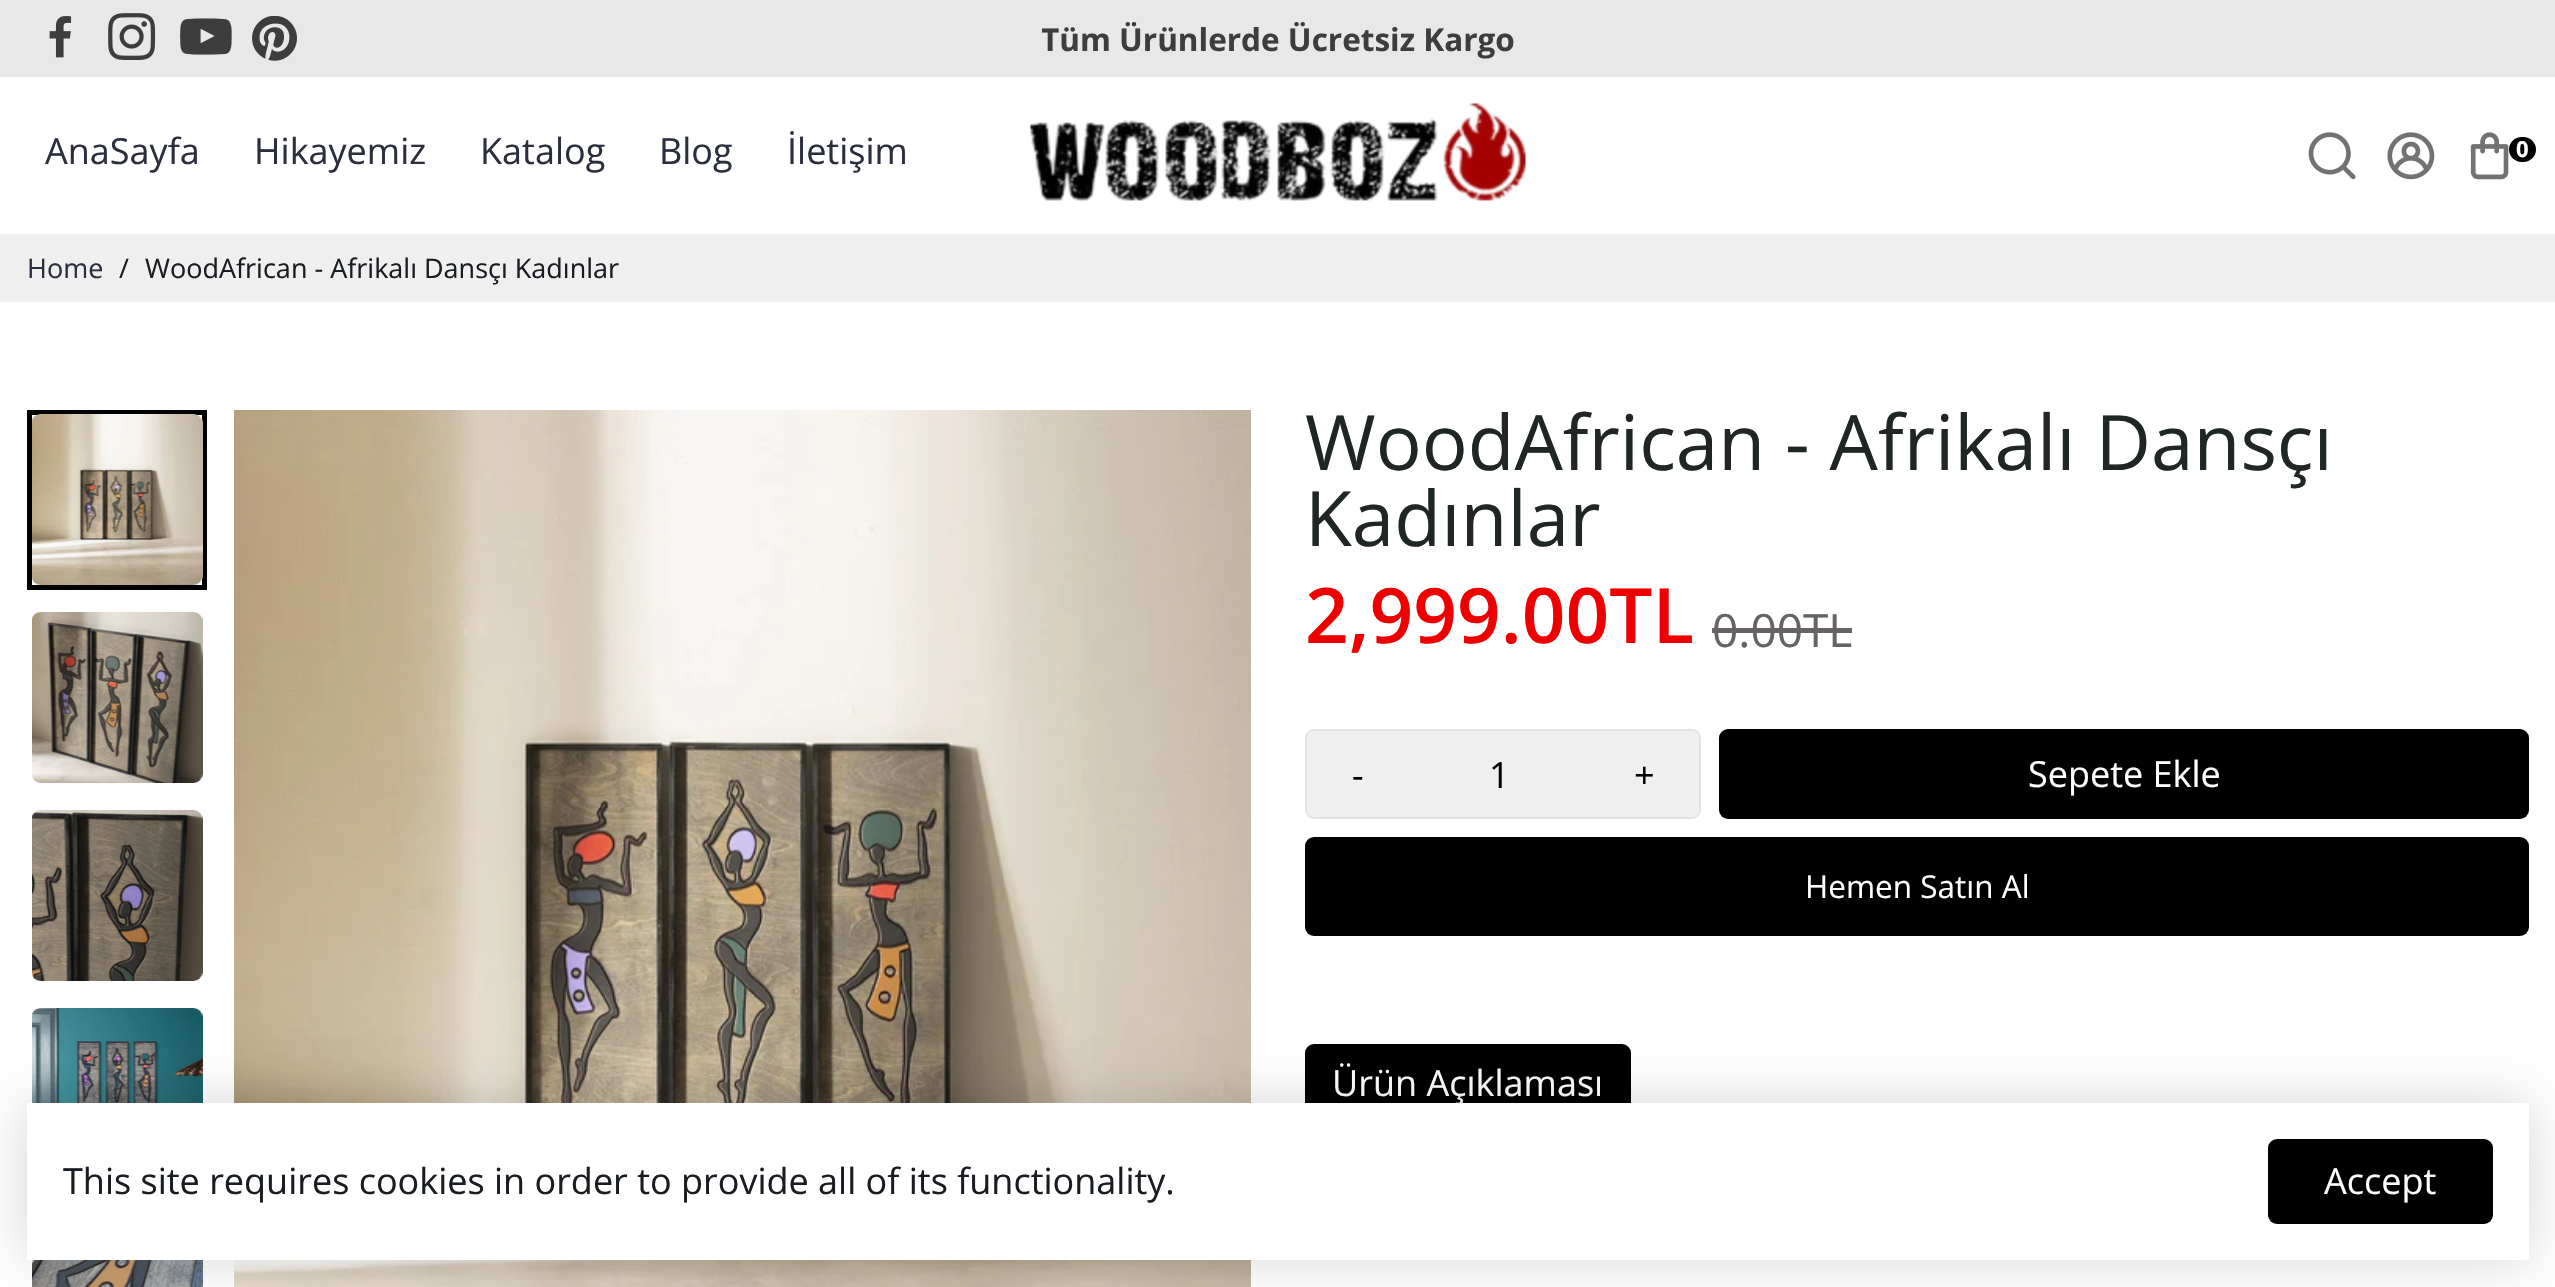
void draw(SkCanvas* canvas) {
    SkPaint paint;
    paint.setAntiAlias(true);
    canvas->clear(0xFFFFFFFF);
    paint.setColor(0xFFE8E8E8);
    canvas->drawRect(SkRect::MakeXYWH(0, 0, 2555, 77), paint);
    canvas->drawImageRect(SkImages::DeferredFromEncodedData(SkData::MakeFromFileName("img1.png")), SkRect::MakeXYWH(49, 16, 23, 42), SkSamplingOptions());
    canvas->drawImageRect(SkImages::DeferredFromEncodedData(SkData::MakeFromFileName("img2.png")), SkRect::MakeXYWH(108, 13, 48, 47), SkSamplingOptions());
    canvas->drawImageRect(SkImages::DeferredFromEncodedData(SkData::MakeFromFileName("img3.png")), SkRect::MakeXYWH(180, 18, 52, 37), SkSamplingOptions());
    canvas->drawImageRect(SkImages::DeferredFromEncodedData(SkData::MakeFromFileName("img4.png")), SkRect::MakeXYWH(252, 16, 45, 45), SkSamplingOptions());
    canvas->save();
    canvas->clipRect(SkRect::MakeXYWH(1042, 5, 472, 67));
    SkFont font1(fontMgr->matchFamilyStyle("Open Sans", SkFontStyle::Bold()), 31.5f);
    font1.setSubpixel(true);
    paint.setColor(0xFF3D3D3D);
    canvas->drawString("Tüm Ürünlerde Ücretsiz Kargo", 1041, 51, font1, paint);
    canvas->restore();
    SkFont font2(fontMgr->matchFamilyStyle("Open Sans", SkFontStyle::Normal()), 36);
    font2.setSubpixel(true);
    paint.setColor(0xFF2B2F3D);
    canvas->drawString("AnaSayfa", 45, 164, font2, paint);
    canvas->drawString("Hikayemiz", 254, 164, font2, paint);
    canvas->drawString("Katalog", 480, 164, font2, paint);
    canvas->drawString("Blog", 659, 164, font2, paint);
    canvas->drawString("İletişim", 787, 164, font2, paint);
    canvas->drawImageRect(SkImages::DeferredFromEncodedData(SkData::MakeFromFileName("img5.png")), SkRect::MakeXYWH(1030, 103, 496, 98), SkSamplingOptions());
    canvas->drawImageRect(SkImages::DeferredFromEncodedData(SkData::MakeFromFileName("img6.png")), SkRect::MakeXYWH(2308, 132, 48, 48), SkSamplingOptions());
    canvas->drawImageRect(SkImages::DeferredFromEncodedData(SkData::MakeFromFileName("img7.png")), SkRect::MakeXYWH(2387, 132, 48, 48), SkSamplingOptions());
    canvas->drawImageRect(SkImages::DeferredFromEncodedData(SkData::MakeFromFileName("img8.png")), SkRect::MakeXYWH(2470, 132, 39, 48), SkSamplingOptions());
    paint.setColor(0xFF000000);
    canvas->drawRoundRect(SkRect::MakeXYWH(2509, 137, 27, 25), 12.5f, 12.5f, paint);
    SkFont font3(fontMgr->matchFamilyStyle("Open Sans", SkFontStyle::Bold()), 22);
    font3.setSubpixel(true);
    paint.setColor(0xFFFFFFFF);
    canvas->drawString("0", 2516, 157, font3, paint);
    paint.setColor(0xFFEFEFEF);
    canvas->drawRect(SkRect::MakeXYWH(0, 234, 2555, 68), paint);
    SkFont font4(fontMgr->matchFamilyStyle("Open Sans", SkFontStyle::Normal()), 27);
    font4.setSubpixel(true);
    paint.setColor(0xFF2B2F3D);
    canvas->drawString("Home", 27, 278, font4, paint);
    paint.setColor(0xFF191D21);
    canvas->drawString("/", 119, 278, font4, paint);
    canvas->drawString("WoodAfrican - Afrikalı Dansçı Kadınlar", 145, 278, font4, paint);
    paint.setStyle(SkPaint::kStroke_Style);
    paint.setStrokeWidth(5);
    paint.setColor(0xFF000000);
    canvas->drawRect(SkRect::MakeXYWH(29.5f, 412.5f, 175, 175), paint);
    canvas->drawImageRect(SkImages::DeferredFromEncodedData(SkData::MakeFromFileName("img9.png")), SkRect::MakeXYWH(32, 414, 171, 171), SkSamplingOptions());
    canvas->drawImageRect(SkImages::DeferredFromEncodedData(SkData::MakeFromFileName("img10.png")), SkRect::MakeXYWH(32, 612, 171, 171), SkSamplingOptions());
    canvas->drawImageRect(SkImages::DeferredFromEncodedData(SkData::MakeFromFileName("img11.png")), SkRect::MakeXYWH(32, 810, 171, 171), SkSamplingOptions());
    canvas->drawImageRect(SkImages::DeferredFromEncodedData(SkData::MakeFromFileName("img12.png")), SkRect::MakeXYWH(32, 1008, 171, 95), SkSamplingOptions());
    canvas->drawImageRect(SkImages::DeferredFromEncodedData(SkData::MakeFromFileName("img13.png")), SkRect::MakeXYWH(32, 1260, 171, 27), SkSamplingOptions());
    canvas->drawImageRect(SkImages::DeferredFromEncodedData(SkData::MakeFromFileName("img14.png")), SkRect::MakeXYWH(234, 410, 1017, 877), SkSamplingOptions());
    SkFont font5(fontMgr->matchFamilyStyle("Open Sans", SkFontStyle::Normal()), 76.5f);
    font5.setSubpixel(true);
    paint.setStyle(SkPaint::kFill_Style);
    paint.setColor(0xFF202626);
    canvas->drawString("WoodAfrican - Afrikalı Dansçı", 1305, 470, font5, paint);
    canvas->drawString("Kadınlar", 1305, 546, font5, paint);
    SkFont font6(fontMgr->matchFamilyStyle("Open Sans", SkFontStyle(600, SkFontStyle::kNormal_Width, SkFontStyle::kUpright_Slant)), 76.5f);
    font6.setSubpixel(true);
    paint.setColor(0xFFEF0000);
    canvas->drawString("2,999.00TL", 1305, 643, font6, paint);
    SkFont font7(fontMgr->matchFamilyStyle("Open Sans", SkFontStyle::Normal()), 46);
    font7.setSubpixel(true);
    paint.setColor(0xFF686363);
    canvas->drawString("0.00TL", 1712, 647, font7, paint);
    canvas->drawRect(SkRect::MakeXYWH(1712, 628, 140, 5), paint);
    paint.setStyle(SkPaint::kStroke_Style);
    paint.setStrokeWidth(2);
    paint.setColor(0xFFE2E2E2);
    canvas->drawRoundRect(SkRect::MakeXYWH(1306, 730, 394, 88), 8, 8, paint);
    paint.setStyle(SkPaint::kFill_Style);
    paint.setColor(0xFFEFEFEF);
    canvas->drawPath(SkPathBuilder().moveTo(1314, 731).lineTo(1409, 731).lineTo(1409, 817).lineTo(1314, 817).cubicTo(1310, 817, 1307, 814, 1307, 810).lineTo(1307, 738).cubicTo(1307, 734, 1310, 731, 1314, 731).close().detach(), paint);
    paint.setColor(0xFF000000);
    canvas->drawString("-", 1352, 788, font2, paint);
    paint.setColor(0xFFEFEFEF);
    canvas->drawRect(SkRect::MakeXYWH(1409, 731, 180, 86), paint);
    paint.setColor(0xFF000000);
    canvas->drawString("1", 1489, 788, font2, paint);
    paint.setColor(0xFFEFEFEF);
    canvas->drawPath(SkPathBuilder().moveTo(1589, 731).lineTo(1692, 731).cubicTo(1696, 731, 1699, 734, 1699, 738).lineTo(1699, 810).cubicTo(1699, 814, 1696, 817, 1692, 817).lineTo(1589, 817).close().detach(), paint);
    paint.setColor(0xFF000000);
    canvas->drawString("+", 1634, 788, font2, paint);
    canvas->drawRoundRect(SkRect::MakeXYWH(1719, 729, 810, 90), 9, 9, paint);
    paint.setColor(0xFFFFFFFF);
    canvas->drawString("Sepete Ekle", 2028, 787, font2, paint);
    paint.setColor(0xFF000000);
    canvas->drawRoundRect(SkRect::MakeXYWH(1305, 837, 1224, 99), 9, 9, paint);
    SkFont font8(fontMgr->matchFamilyStyle("Open Sans", SkFontStyle::Normal()), 31.5f);
    font8.setSubpixel(true);
    paint.setColor(0xFFFFFFFF);
    canvas->drawString("Hemen Satın Al", 1805, 898, font8, paint);
    paint.setColor(0xFF000000);
    canvas->drawRoundRect(SkRect::MakeXYWH(1305, 1044, 326, 79), 9, 9, paint);
    paint.setColor(0xFFFFFFFF);
    canvas->drawString("Ürün Açıklaması", 1332, 1096, font2, paint);
    paint.setColor(0x29000000);
    paint.setMaskFilter(SkMaskFilter::MakeBlur(kNormal_SkBlurStyle, 27));
    canvas->drawRect(SkRect::MakeXYWH(27, 1103, 2502, 157), paint);
    paint.setMaskFilter(nullptr);
    paint.setColor(0xFFFFFFFF);
    canvas->drawRect(SkRect::MakeXYWH(27, 1103, 2502, 157), paint);
    paint.setColor(0xFF191D21);
    canvas->drawString("This site requires cookies in order to provide all of its functionality.", 63, 1194, font2, paint);
    paint.setColor(0xFF000000);
    canvas->drawRoundRect(SkRect::MakeXYWH(2268, 1139, 225, 85), 9, 9, paint);
    paint.setColor(0xFFFFFFFF);
    canvas->drawString("Accept", 2324, 1194, font2, paint);
}
